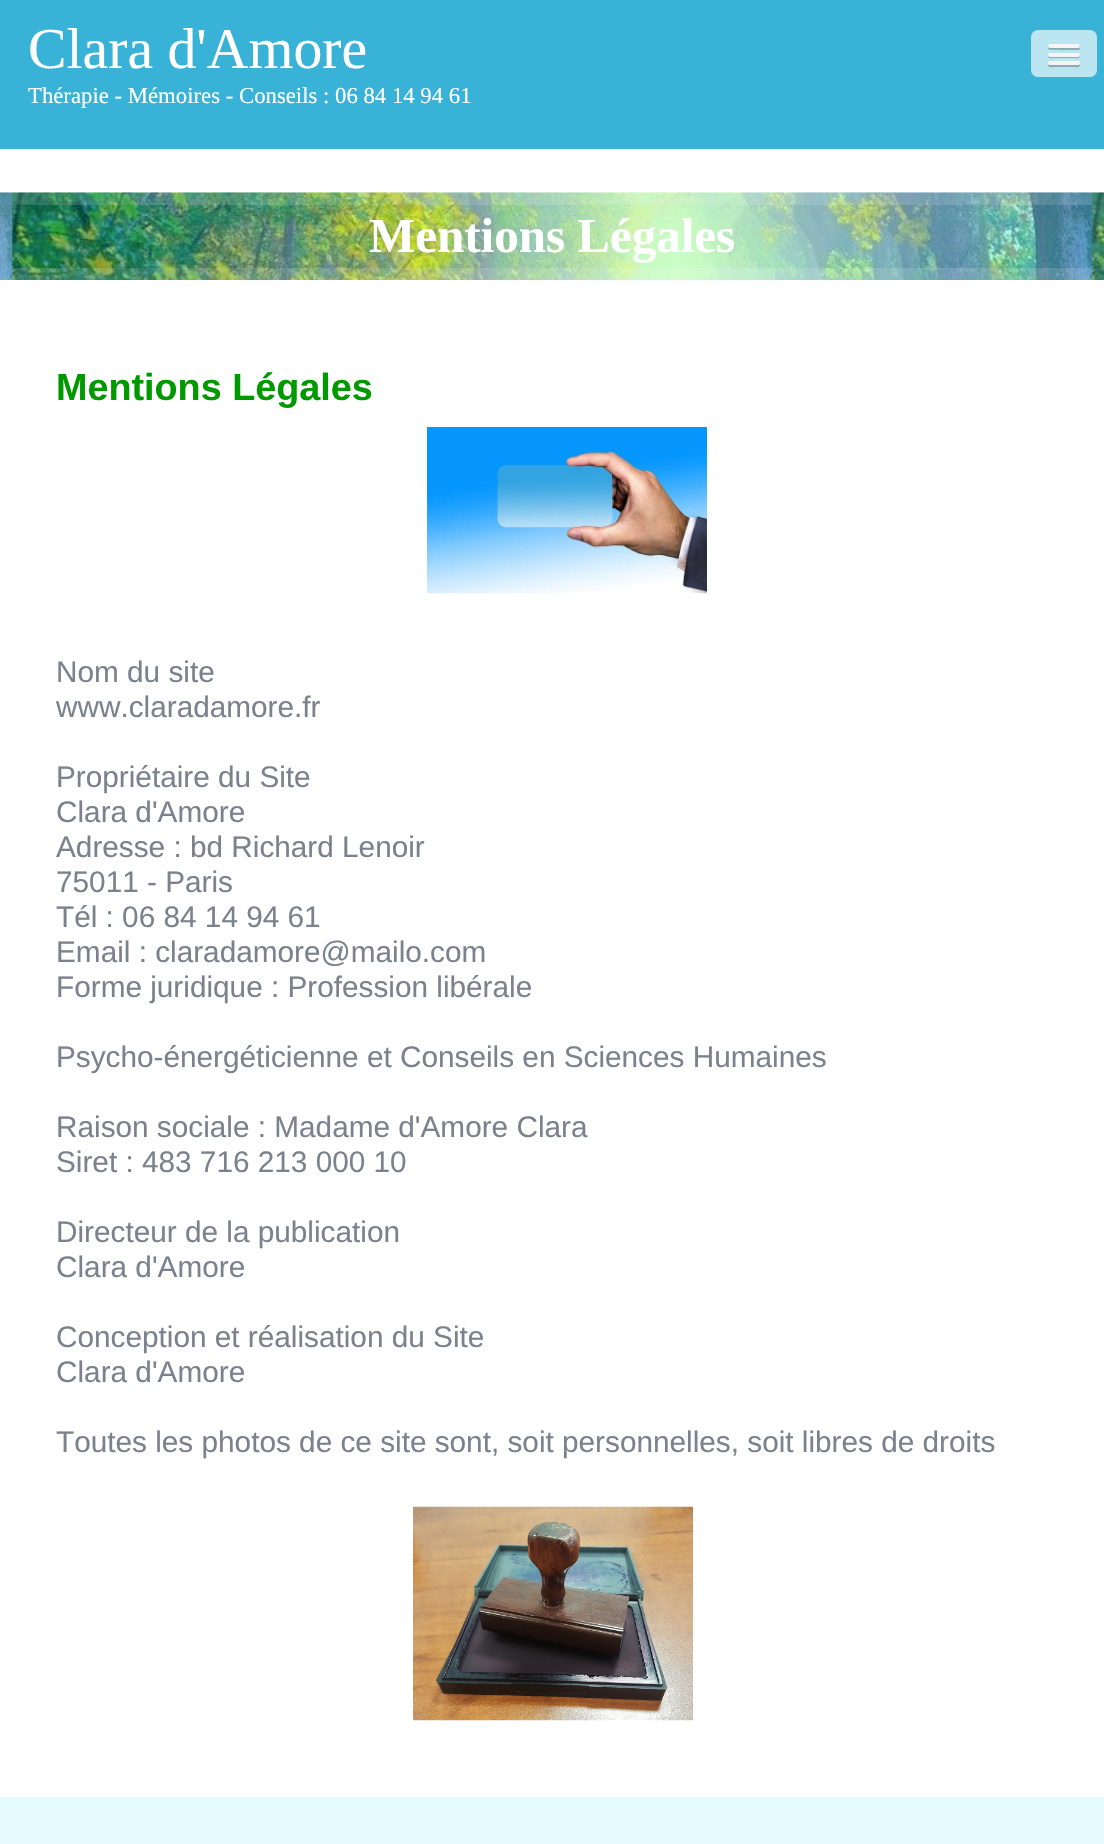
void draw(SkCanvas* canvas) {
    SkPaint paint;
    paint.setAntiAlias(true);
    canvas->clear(0xFFFFFFFF);
    paint.setColor(0xFF38B2D7);
    canvas->drawRect(SkRect::MakeXYWH(0, 0, 1104, 149), paint);
    SkFont font1(fontMgr->matchFamilyStyle("Liberation Serif", SkFontStyle::Normal()), 57.75f);
    font1.setSubpixel(true);
    paint.setColor(0xFFFFFFFF);
    canvas->drawString("Clara d'Amore", 28, 68, font1, paint);
    SkFont font2(fontMgr->matchFamilyStyle("Liberation Serif", SkFontStyle::Normal()), 22.75f);
    font2.setSubpixel(true);
    canvas->drawString("Thérapie - Mémoires - Conseils : 06 84 14 94 61", 28, 103, font2, paint);
    paint.setColor(0xFFBBE5F1);
    canvas->drawRoundRect(SkRect::MakeXYWH(1031, 30, 66, 47), 7, 7, paint);
    paint.setColor(0xFF8CACB5);
    canvas->drawPath(SkPathBuilder().moveTo(1048.5f, 46.5f).cubicTo(1047.5f, 47.5f, 1048, 49, 1049, 49.5f).cubicTo(1050, 50.5f, 1074.5f, 50, 1078, 50).cubicTo(1080, 50, 1080.5f, 48, 1079.5f, 46.5f).lineTo(1078, 47).lineTo(1050, 47).close().detach(), paint);
    paint.setColor(0xFFF5F5F5);
    canvas->drawRoundRect(SkRect::MakeXYWH(1048, 44, 32, 4), 2, 2, paint);
    paint.setColor(0xFF8CACB5);
    canvas->drawPath(SkPathBuilder().moveTo(1048.5f, 55).lineTo(1048, 56.5f).cubicTo(1048.5f, 59, 1053.5f, 58, 1054.5f, 58).lineTo(1073.5f, 58).cubicTo(1074.5f, 58, 1079.5f, 59, 1080, 56.5f).lineTo(1079.5f, 55).cubicTo(1079.5f, 55.5f, 1079, 56, 1078, 56).lineTo(1050, 56).cubicTo(1049, 56, 1048.5f, 55.5f, 1048.5f, 55).close().detach(), paint);
    paint.setColor(0xFFF5F5F5);
    canvas->drawRoundRect(SkRect::MakeXYWH(1048, 53, 32, 4), 2, 2, paint);
    paint.setColor(0xFF8CACB5);
    canvas->drawPath(SkPathBuilder().moveTo(1048.5f, 64).lineTo(1048, 65.5f).cubicTo(1048.5f, 68, 1053.5f, 67, 1054.5f, 67).lineTo(1073.5f, 67).cubicTo(1074.5f, 67, 1079.5f, 68, 1080, 65.5f).lineTo(1079.5f, 64).cubicTo(1079.5f, 64.5f, 1078.5f, 65, 1078, 65).lineTo(1050, 65).cubicTo(1049.5f, 65, 1048.5f, 64.5f, 1048.5f, 64).close().detach(), paint);
    paint.setColor(0xFFF5F5F5);
    canvas->drawRoundRect(SkRect::MakeXYWH(1048, 61, 32, 4), 2, 2, paint);
    canvas->drawImageRect(SkImages::DeferredFromEncodedData(SkData::MakeFromFileName("img1.png")), SkRect::MakeXYWH(0, 192, 1104, 88), SkSamplingOptions());
    paint.setStyle(SkPaint::kStroke_Style);
    paint.setStrokeWidth(12);
    paint.setColor(0x21FFFFFF);
    canvas->drawRect(SkRect::MakeXYWH(6, 199, 1092, 75), paint);
    SkFont font3(fontMgr->matchFamilyStyle("Liberation Serif", SkFontStyle::Bold()), 49);
    font3.setSubpixel(true);
    paint.setStyle(SkPaint::kFill_Style);
    paint.setColor(0xFFFFFFFF);
    canvas->drawString("Mentions Légales", 369, 252, font3, paint);
    SkFont font4(fontMgr->matchFamilyStyle("Liberation Sans", SkFontStyle::Bold()), 37.75f);
    font4.setSubpixel(true);
    paint.setColor(0xFF009900);
    canvas->drawString("Mentions Légales", 56, 400, font4, paint);
    canvas->drawImageRect(SkImages::DeferredFromEncodedData(SkData::MakeFromFileName("img2.png")), SkRect::MakeXYWH(427, 427, 280, 167), SkSamplingOptions());
    SkFont font5(fontMgr->matchFamilyStyle("Liberation Sans", SkFontStyle::Normal()), 29.75f);
    font5.setSubpixel(true);
    paint.setColor(0xFF7C828D);
    canvas->drawString("Nom du site", 56, 682, font5, paint);
    canvas->drawString("www.claradamore.fr", 56, 717, font5, paint);
    canvas->drawString("Propriétaire du Site", 56, 787, font5, paint);
    canvas->drawString("Clara d'Amore", 56, 822, font5, paint);
    canvas->drawString("Adresse : bd Richard Lenoir", 56, 857, font5, paint);
    canvas->drawString("75011 - Paris", 56, 892, font5, paint);
    canvas->drawString("Tél : 06 84 14 94 61", 56, 927, font5, paint);
    canvas->drawString("Email : claradamore@mailo.com", 56, 962, font5, paint);
    canvas->drawString("Forme juridique : Profession libérale", 56, 997, font5, paint);
    canvas->drawString("Psycho-énergéticienne et Conseils en Sciences Humaines", 56, 1067, font5, paint);
    canvas->drawString("Raison sociale : Madame d'Amore Clara", 56, 1137, font5, paint);
    canvas->drawString("Siret : 483 716 213 000 10", 56, 1172, font5, paint);
    canvas->drawString("Directeur de la publication", 56, 1242, font5, paint);
    canvas->drawString("Clara d'Amore", 56, 1277, font5, paint);
    canvas->drawString("Conception et réalisation du Site", 56, 1347, font5, paint);
    canvas->drawString("Clara d'Amore", 56, 1382, font5, paint);
    canvas->drawString("Toutes les photos de ce site sont, soit personnelles, soit libres de droits", 56, 1452, font5, paint);
    canvas->drawImageRect(SkImages::DeferredFromEncodedData(SkData::MakeFromFileName("img3.png")), SkRect::MakeXYWH(413, 1506, 280, 215), SkSamplingOptions());
    paint.setColor(0xFFE5FBFF);
    canvas->drawRect(SkRect::MakeXYWH(0, 1797, 1104, 47), paint);
}
